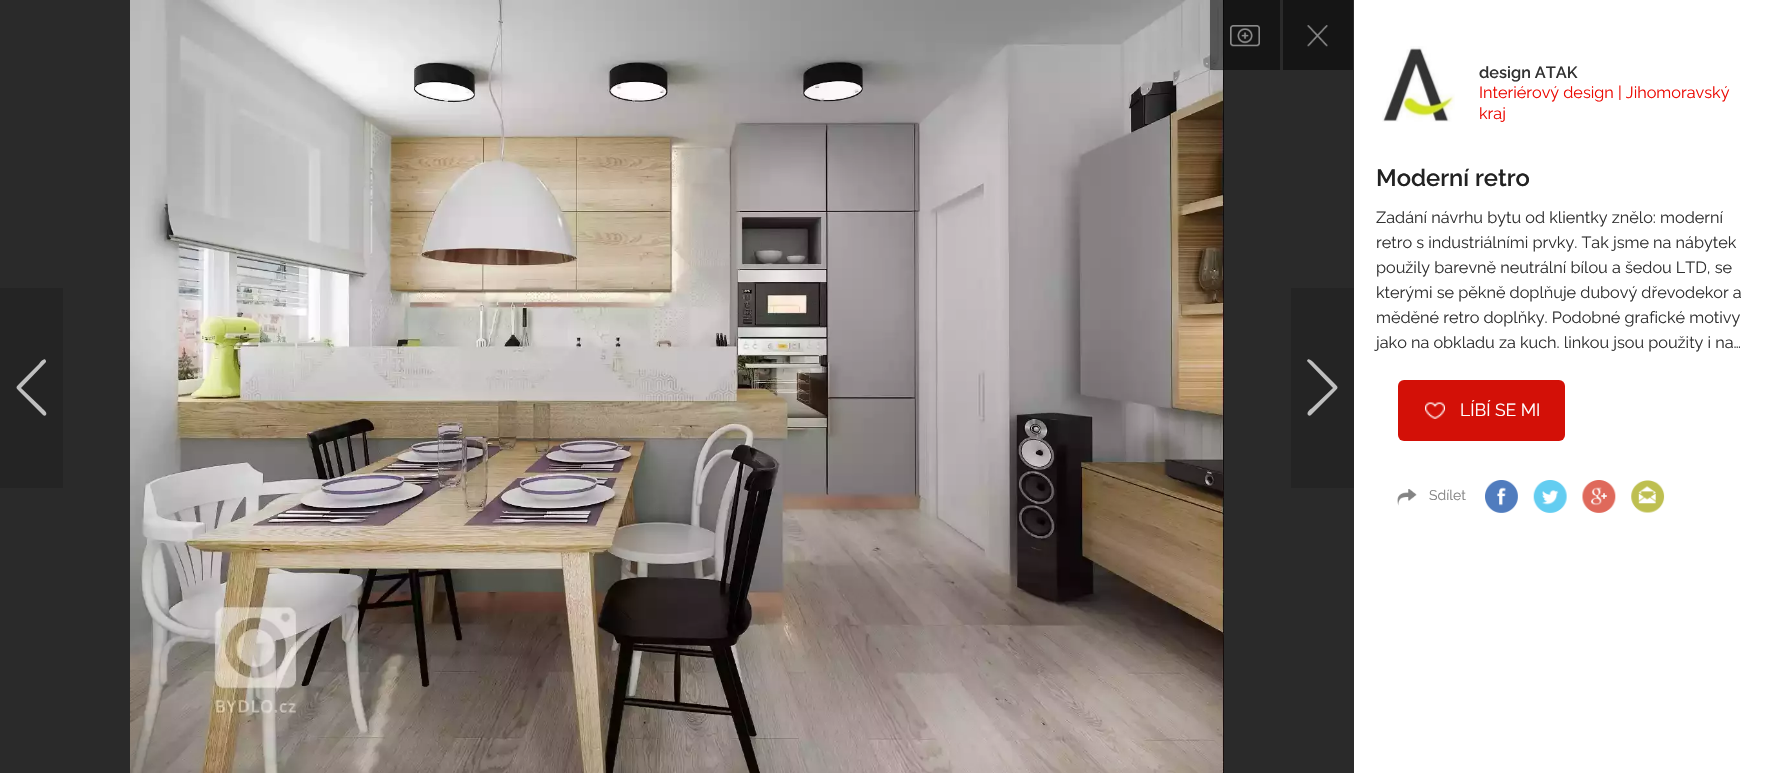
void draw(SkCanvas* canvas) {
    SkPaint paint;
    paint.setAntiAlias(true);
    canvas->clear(0xFFFFFFFF);
    paint.setColor(0xFF2A2A2A);
    canvas->drawRect(SkRect::MakeXYWH(0, 0, 1354, 773), paint);
    canvas->drawImageRect(SkImages::DeferredFromEncodedData(SkData::MakeFromFileName("img1.png")), SkRect::MakeXYWH(130, 0, 1094, 773), SkSamplingOptions());
    paint.setColor(0x80000000);
    canvas->drawRect(SkRect::MakeXYWH(1210, 0, 70, 70), paint);
    canvas->drawImageRect(SkImages::DeferredFromEncodedData(SkData::MakeFromFileName("img2.png")), SkRect::MakeXYWH(1230, 25, 30, 22), SkSamplingOptions());
    paint.setColor(0xFF151515);
    canvas->drawRect(SkRect::MakeXYWH(1283, 0, 70, 70), paint);
    canvas->drawImageRect(SkImages::DeferredFromEncodedData(SkData::MakeFromFileName("img3.png")), SkRect::MakeXYWH(1307, 25, 21, 22), SkSamplingOptions());
    paint.setColor(0xFF242424);
    canvas->drawRect(SkRect::MakeXYWH(0, 288, 63, 200), paint);
    paint.setColor(0xFFBFBFBF);
    canvas->drawPath(SkPathBuilder().moveTo(43, 415).cubicTo(44, 416, 45, 416, 46, 415).cubicTo(48, 412, 42, 409, 42, 408).lineTo(21, 388).lineTo(46, 362).lineTo(46, 361).cubicTo(45, 357, 41, 361, 39, 364).lineTo(21, 382).cubicTo(15, 388, 15, 387, 21, 393).close().detach(), paint);
    paint.setColor(0xFF242424);
    canvas->drawRect(SkRect::MakeXYWH(1291, 288, 63, 200), paint);
    paint.setColor(0xFFBFBFBF);
    canvas->drawPath(SkPathBuilder().moveTo(1311, 415).cubicTo(1310, 416, 1309, 416, 1308, 415).cubicTo(1306, 412, 1311, 409, 1312, 408).lineTo(1333, 388).lineTo(1308, 362).lineTo(1307, 361).cubicTo(1308, 357, 1312, 361, 1315, 364).lineTo(1333, 382).cubicTo(1339, 388, 1339, 387, 1333, 393).close().detach(), paint);
    canvas->drawImageRect(SkImages::DeferredFromEncodedData(SkData::MakeFromFileName("img4.png")), SkRect::MakeXYWH(1382, 46, 73, 76), SkSamplingOptions());
    SkFont font1(fontMgr->matchFamilyStyle("Raleway", SkFontStyle(600, SkFontStyle::kNormal_Width, SkFontStyle::kUpright_Slant)), 16.25f);
    font1.setSubpixel(true);
    paint.setColor(0xFF323232);
    canvas->drawString("design ATAK", 1479, 78, font1, paint);
    SkFont font2(fontMgr->matchFamilyStyle("Raleway", SkFontStyle::Normal()), 16.25f);
    font2.setSubpixel(true);
    paint.setColor(0xFFEC0B04);
    canvas->drawString("Interiérový design | Jihomoravský", 1479, 98, font2, paint);
    canvas->drawString("kraj", 1479, 119, font2, paint);
    SkFont font3(fontMgr->matchFamilyStyle("Raleway", SkFontStyle(600, SkFontStyle::kNormal_Width, SkFontStyle::kUpright_Slant)), 23.75f);
    font3.setSubpixel(true);
    paint.setColor(0xFF222222);
    canvas->drawString("Moderní retro", 1376, 186, font3, paint);
    paint.setColor(0xFF323232);
    canvas->drawString("Zadání návrhu bytu od klientky znělo: moderní", 1376, 223, font2, paint);
    canvas->drawString("retro s industriálními prvky. Tak jsme na nábytek", 1376, 248, font2, paint);
    canvas->drawString("použily barevně neutrální bílou a šedou LTD, se", 1376, 273, font2, paint);
    canvas->drawString("kterými se pěkně doplňuje dubový dřevodekor a", 1376, 298, font2, paint);
    canvas->drawString("měděné retro doplňky. Podobné grafické motivy", 1376, 323, font2, paint);
    canvas->drawString("jako na obkladu za kuch. linkou jsou použity i na…", 1376, 348, font2, paint);
    paint.setColor(0xFFD31007);
    canvas->drawRoundRect(SkRect::MakeXYWH(1398, 380, 167, 61), 6, 6, paint);
    canvas->drawImageRect(SkImages::DeferredFromEncodedData(SkData::MakeFromFileName("img5.png")), SkRect::MakeXYWH(1425, 402, 20, 17), SkSamplingOptions());
    SkFont font4(fontMgr->matchFamilyStyle("Raleway", SkFontStyle::Normal()), 17.5f);
    font4.setSubpixel(true);
    paint.setColor(0xFFFFFFFF);
    canvas->drawString("LÍBÍ SE MI", 1460, 416, font4, paint);
    canvas->drawImageRect(SkImages::DeferredFromEncodedData(SkData::MakeFromFileName("img6.png")), SkRect::MakeXYWH(1397, 489, 20, 17), SkSamplingOptions());
    SkFont font5(fontMgr->matchFamilyStyle("Raleway", SkFontStyle::Normal()), 14);
    font5.setSubpixel(true);
    paint.setColor(0xFF838383);
    canvas->drawString("Sdílet", 1429, 500, font5, paint);
    canvas->drawImageRect(SkImages::DeferredFromEncodedData(SkData::MakeFromFileName("img7.png")), SkRect::MakeXYWH(1485, 480, 33, 33), SkSamplingOptions());
    canvas->drawImageRect(SkImages::DeferredFromEncodedData(SkData::MakeFromFileName("img8.png")), SkRect::MakeXYWH(1533, 480, 34, 33), SkSamplingOptions());
    canvas->drawImageRect(SkImages::DeferredFromEncodedData(SkData::MakeFromFileName("img9.png")), SkRect::MakeXYWH(1582, 480, 34, 33), SkSamplingOptions());
    canvas->drawImageRect(SkImages::DeferredFromEncodedData(SkData::MakeFromFileName("img10.png")), SkRect::MakeXYWH(1631, 480, 34, 33), SkSamplingOptions());
}
